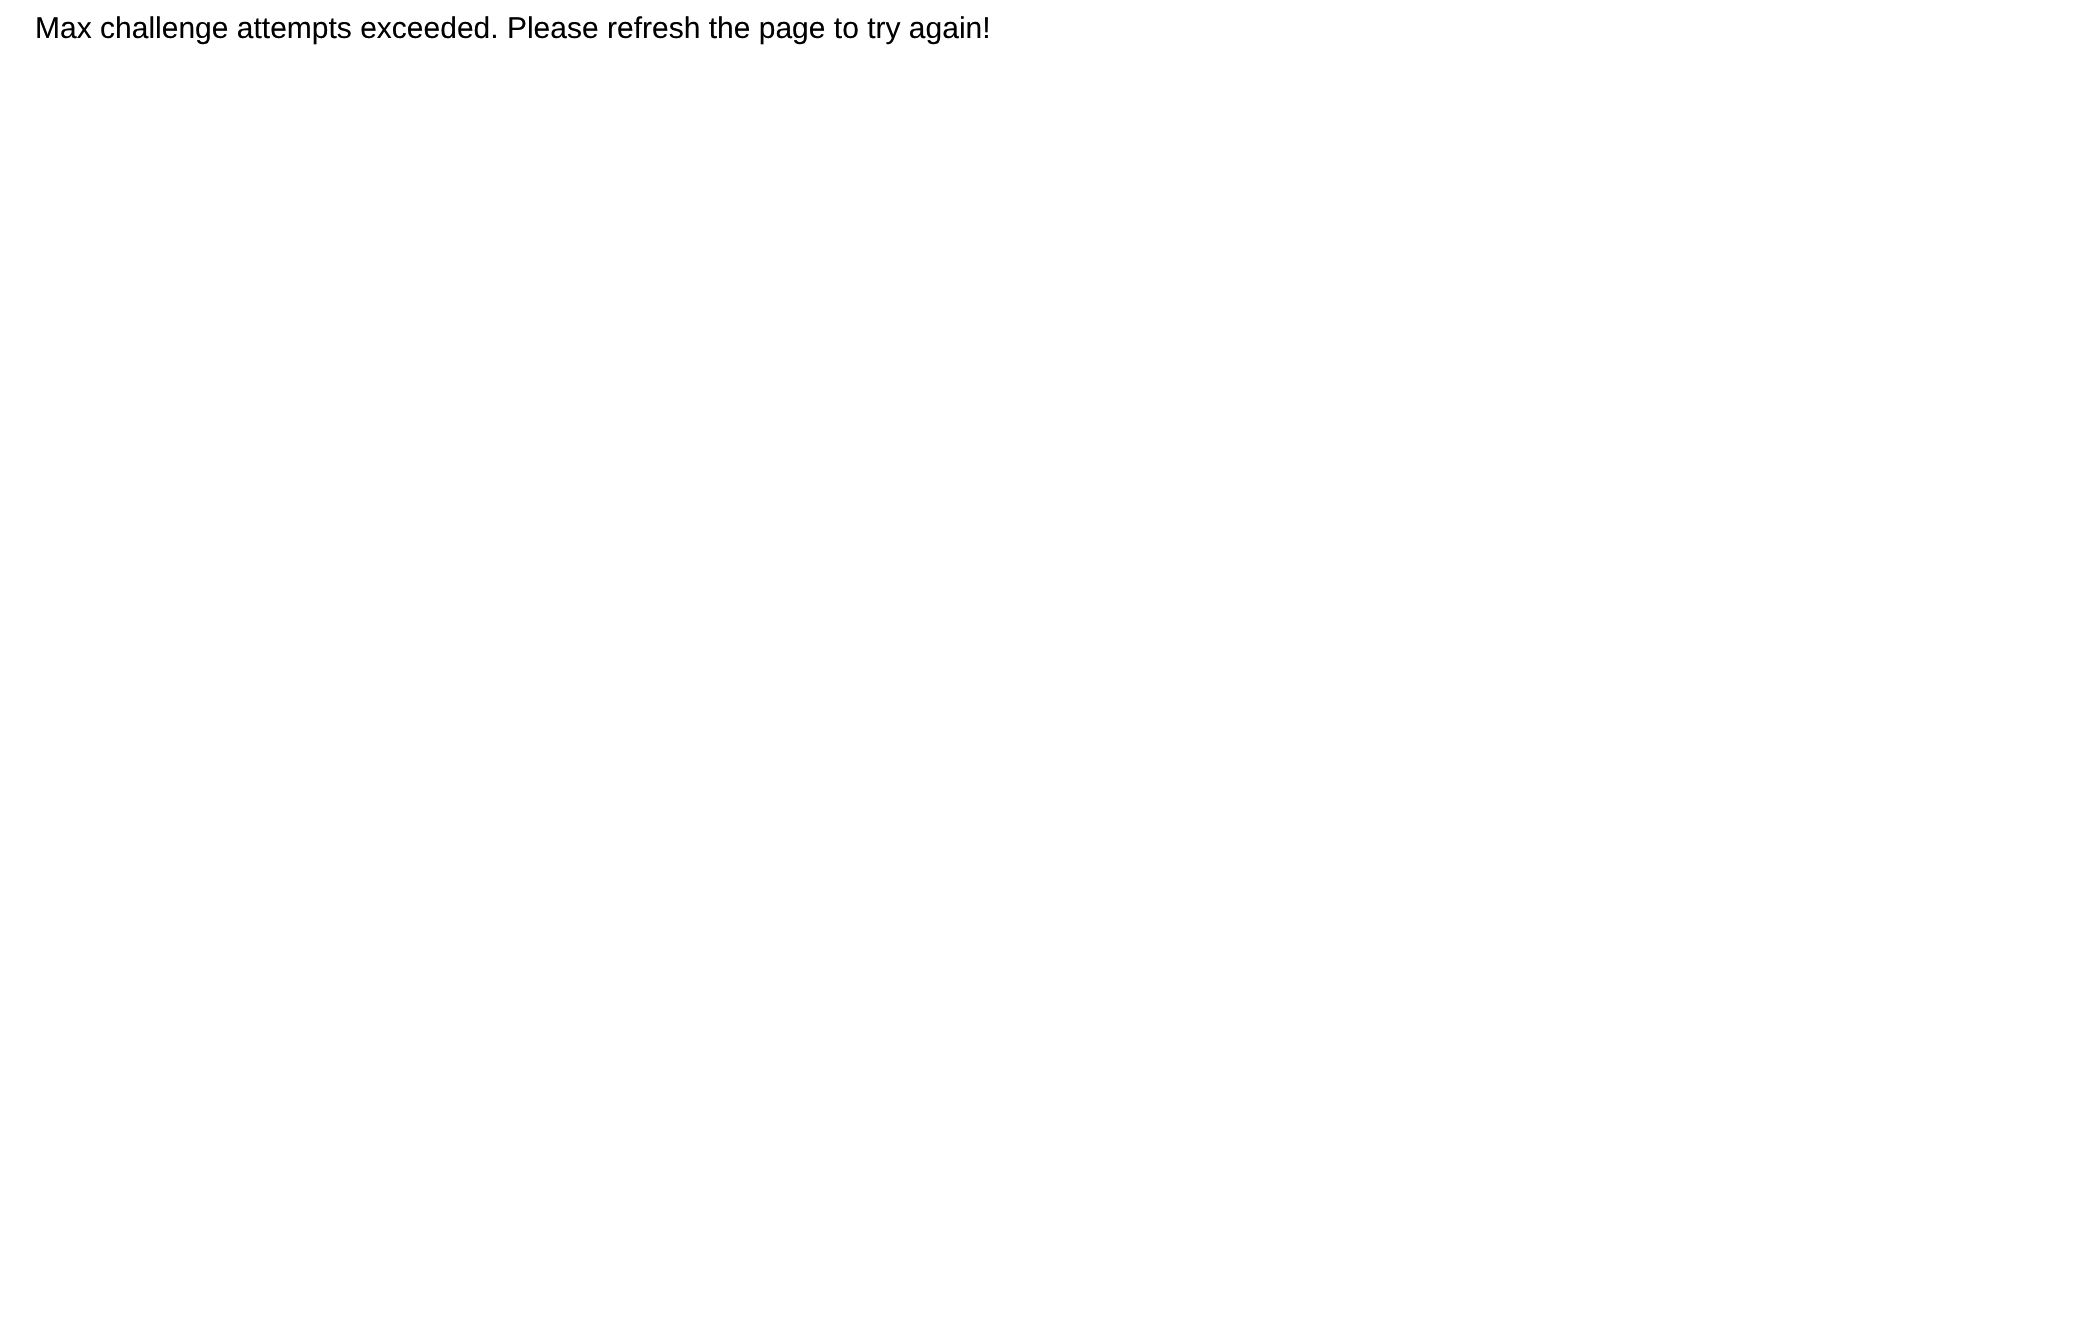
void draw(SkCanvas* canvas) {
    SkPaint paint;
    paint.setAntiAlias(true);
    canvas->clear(0xFFFFFFFF);
    SkFont font1(fontMgr->matchFamilyStyle("Liberation Sans", SkFontStyle::Normal()), 30);
    font1.setSubpixel(true);
    paint.setColor(0xFF000000);
    canvas->drawString("Max challenge attempts exceeded. Please refresh the page to try again!", 35, 38, font1, paint);
}
